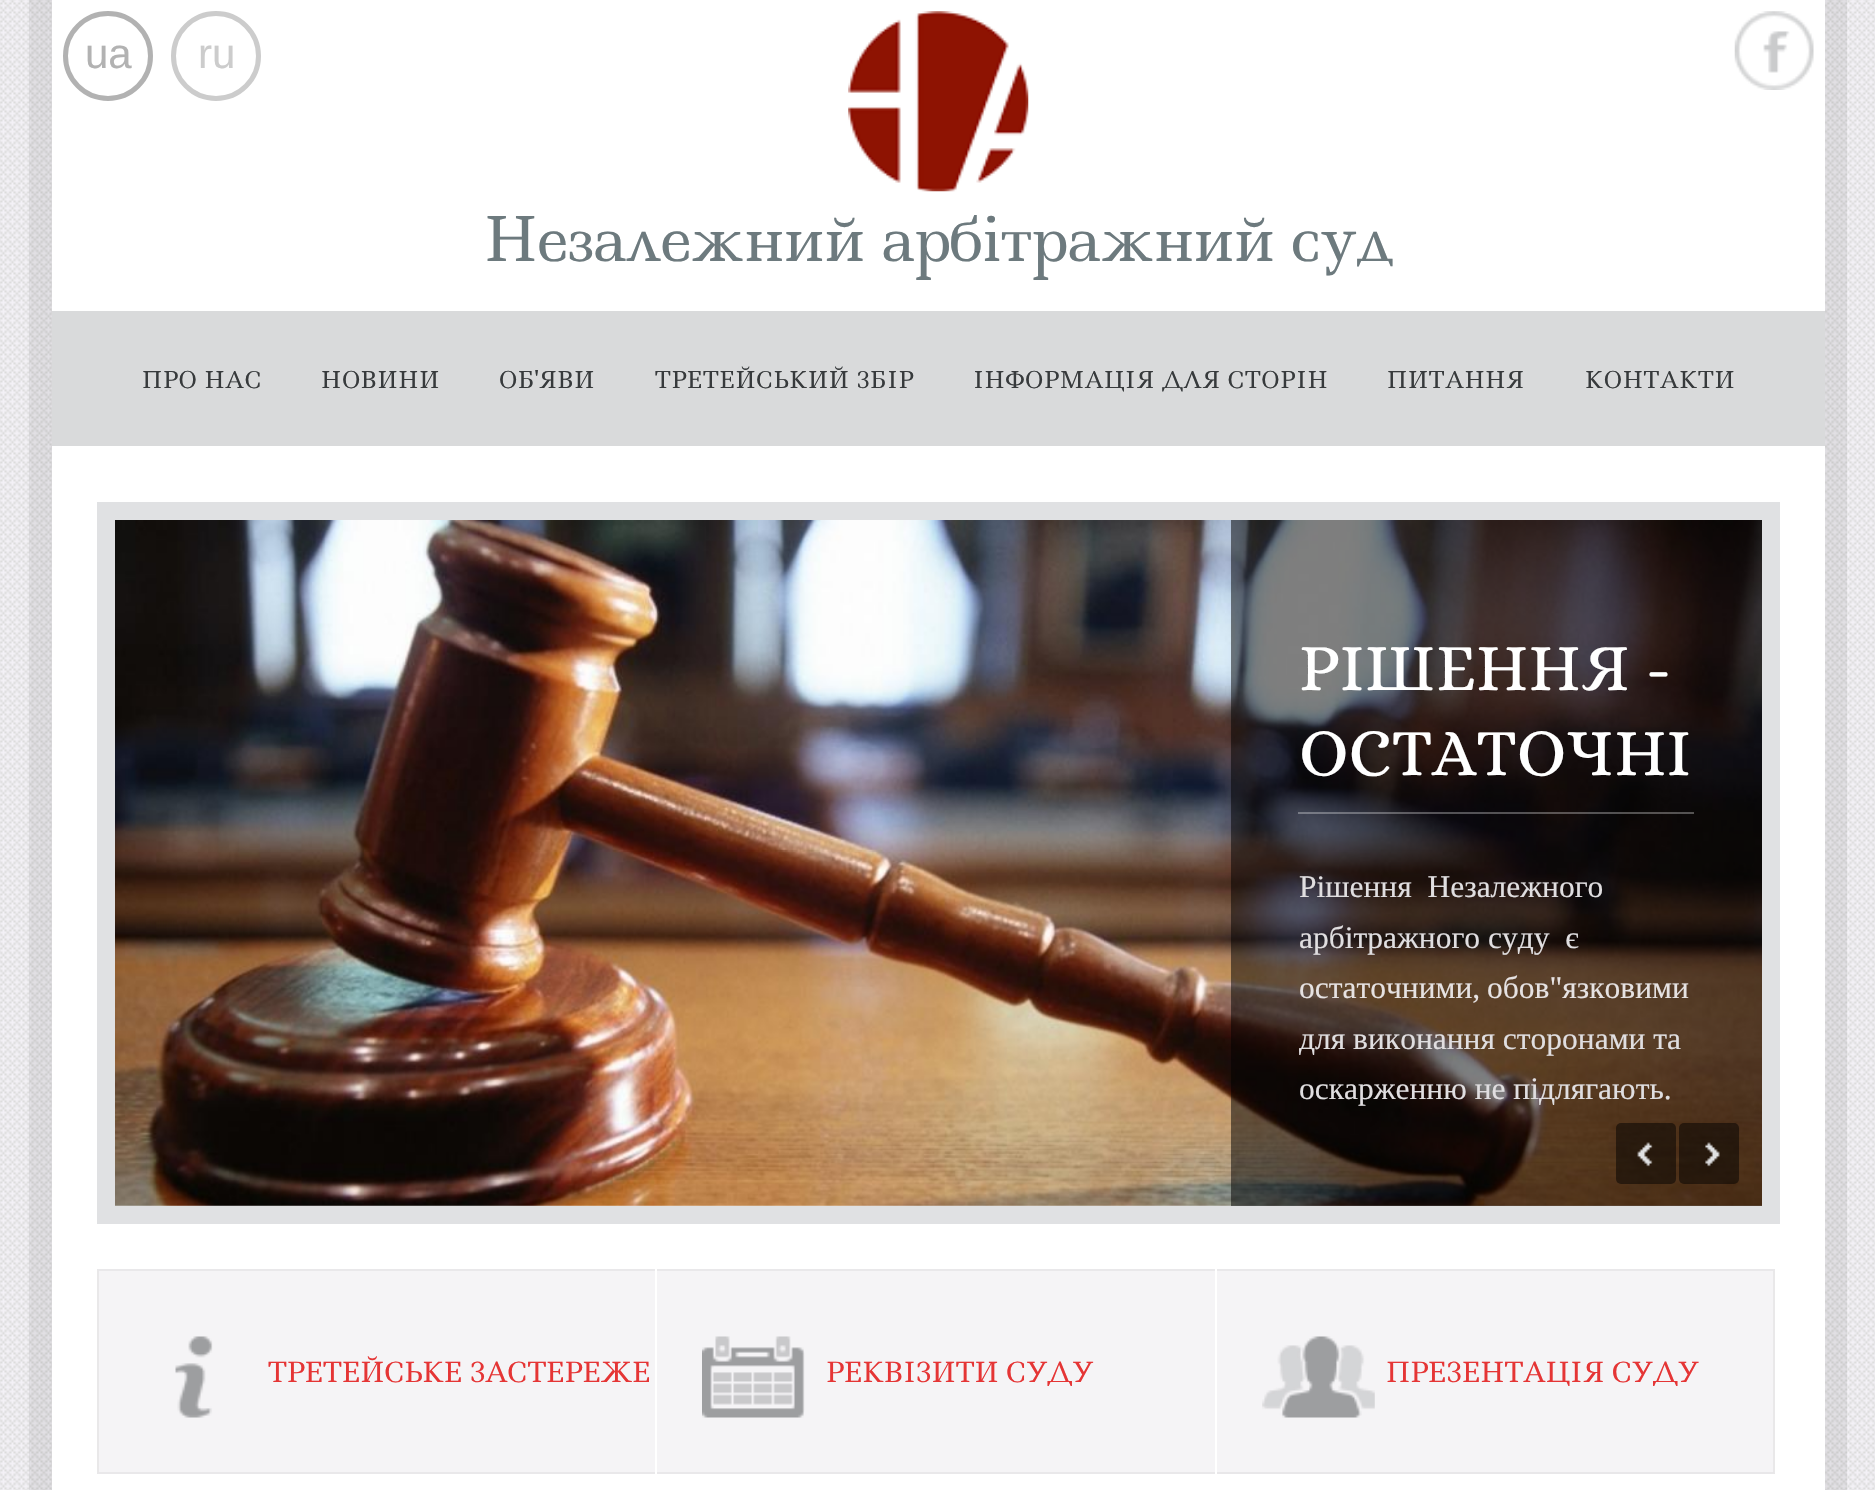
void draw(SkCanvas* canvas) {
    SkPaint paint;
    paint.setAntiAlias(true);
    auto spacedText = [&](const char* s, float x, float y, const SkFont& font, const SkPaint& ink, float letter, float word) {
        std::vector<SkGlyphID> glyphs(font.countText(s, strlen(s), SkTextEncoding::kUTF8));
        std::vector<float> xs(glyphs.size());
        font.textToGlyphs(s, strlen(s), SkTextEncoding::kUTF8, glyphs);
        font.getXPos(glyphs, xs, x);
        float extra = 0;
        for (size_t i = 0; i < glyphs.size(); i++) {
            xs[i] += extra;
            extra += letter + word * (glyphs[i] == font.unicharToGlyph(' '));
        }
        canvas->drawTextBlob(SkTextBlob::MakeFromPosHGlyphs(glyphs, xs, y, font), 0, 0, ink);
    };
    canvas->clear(0xFFF3F1F6);
    canvas->drawImageRect(SkImages::DeferredFromEncodedData(SkData::MakeFromFileName("img1.png")), SkRect::MakeXYWH(0, 0, 1875, 1490), SkSamplingOptions());
    paint.setStyle(SkPaint::kStroke_Style);
    paint.setStrokeWidth(23);
    paint.setColor(0x12000000);
    canvas->drawRect(SkRect::MakeXYWH(40.5f, -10.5f, 1795, 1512), paint);
    paint.setStyle(SkPaint::kFill_Style);
    paint.setColor(0xFFFFFFFF);
    canvas->drawRect(SkRect::MakeXYWH(52, 0, 1773, 1490), paint);
    paint.setStyle(SkPaint::kStroke_Style);
    paint.setStrokeWidth(5);
    paint.setColor(0xFFB2B2B2);
    canvas->drawCircle(108, 56, 42.5f, paint);
    SkFont font1(fontMgr->matchFamilyStyle("Liberation Sans", SkFontStyle::Normal()), 42);
    font1.setSubpixel(true);
    paint.setStyle(SkPaint::kFill_Style);
    canvas->drawString("ua", 85, 68, font1, paint);
    paint.setStyle(SkPaint::kStroke_Style);
    paint.setColor(0xFFCCCCCC);
    canvas->drawCircle(216, 56, 42.5f, paint);
    paint.setStyle(SkPaint::kFill_Style);
    canvas->drawString("ru", 198, 68, font1, paint);
    canvas->drawImageRect(SkImages::DeferredFromEncodedData(SkData::MakeFromFileName("img2.png")), SkRect::MakeXYWH(1734, 11, 80, 79), SkSamplingOptions());
    canvas->drawImageRect(SkImages::DeferredFromEncodedData(SkData::MakeFromFileName("img3.png")), SkRect::MakeXYWH(848, 11, 181, 181), SkSamplingOptions());
    SkFont font2(fontMgr->matchFamilyStyle("Ledger", SkFontStyle::Normal()), 60);
    font2.setSubpixel(true);
    paint.setColor(0xFF6D7A7E);
    canvas->drawString("Незалежний арбітражний суд", 484, 261, font2, paint);
    paint.setColor(0xFFD9DADB);
    canvas->drawRect(SkRect::MakeXYWH(52, 311, 1773, 135), paint);
    SkFont font3(fontMgr->matchFamilyStyle("Ledger", SkFontStyle::Normal()), 22.5f);
    font3.setSubpixel(true);
    paint.setColor(0xFF373A3C);
    spacedText("ПРО НАС", 142, 388, font3, paint, 0.7f, 0);
    spacedText("НОВИНИ", 321, 388, font3, paint, 0.7f, 0);
    spacedText("ОБ'ЯВИ", 499, 388, font3, paint, 0.7f, 0);
    spacedText("ТРЕТЕЙСЬКИЙ ЗБІР", 655, 388, font3, paint, 0.7f, 0);
    spacedText("ІНФОРМАЦІЯ ДЛЯ СТОРІН", 973, 388, font3, paint, 0.7f, 0);
    spacedText("ПИТАННЯ", 1387, 388, font3, paint, 0.7f, 0);
    spacedText("КОНТАКТИ", 1585, 388, font3, paint, 0.7f, 0);
    paint.setStyle(SkPaint::kStroke_Style);
    paint.setStrokeWidth(18);
    paint.setColor(0xFFE0E1E3);
    canvas->drawRect(SkRect::MakeXYWH(106, 511, 1665, 704), paint);
    canvas->drawImageRect(SkImages::DeferredFromEncodedData(SkData::MakeFromFileName("img4.png")), SkRect::MakeXYWH(115, 520, 1647, 686), SkSamplingOptions());
    paint.setStyle(SkPaint::kFill_Style);
    paint.setColor(0x80000000);
    canvas->drawRect(SkRect::MakeXYWH(1231, 520, 531, 686), paint);
    paint.setColor(0x4DFFFFFF);
    canvas->drawRect(SkRect::MakeXYWH(1298, 812, 396, 2), paint);
    SkFont font4(fontMgr->matchFamilyStyle("Alice", SkFontStyle::Normal()), 67.5f);
    font4.setSubpixel(true);
    paint.setColor(0xFFFFFFFF);
    canvas->drawString("РІШЕННЯ -", 1299, 690, font4, paint);
    canvas->drawString("ОСТАТОЧНІ", 1299, 775, font4, paint);
    SkFont font5(fontMgr->matchFamilyStyle("Liberation Serif", SkFontStyle::Normal()), 31.5f);
    font5.setSubpixel(true);
    paint.setColor(0xFFE0DEE0);
    canvas->drawString("Рішення  Незалежного", 1299, 897, font5, paint);
    canvas->drawString("арбітражного суду  є", 1299, 948, font5, paint);
    paint.setColor(0xFFE6E2E2);
    spacedText("остаточними, обов\"язковими", 1299, 998, font5, paint, 0, -1);
    paint.setColor(0xFFE0DEE0);
    canvas->drawString("для виконання сторонами та", 1299, 1049, font5, paint);
    canvas->drawString("оскарженню не підлягають.", 1299, 1099, font5, paint);
    paint.setColor(0x80000000);
    canvas->drawRoundRect(SkRect::MakeXYWH(1616, 1123, 60, 61), 5, 5, paint);
    canvas->drawImageRect(SkImages::DeferredFromEncodedData(SkData::MakeFromFileName("img5.png")), SkRect::MakeXYWH(1637, 1142, 16, 25), SkSamplingOptions());
    canvas->drawRoundRect(SkRect::MakeXYWH(1679, 1123, 60, 61), 5, 5, paint);
    canvas->drawImageRect(SkImages::DeferredFromEncodedData(SkData::MakeFromFileName("img6.png")), SkRect::MakeXYWH(1705, 1142, 15, 25), SkSamplingOptions());
    paint.setColor(0xFFF5F4F6);
    canvas->drawRect(SkRect::MakeXYWH(97, 1269, 558, 205), paint);
    paint.setColor(0xFFE9E8EA);
    canvas->drawPath(SkPathBuilder().moveTo(97, 1269).lineTo(655, 1269).lineTo(655, 1271).lineTo(99, 1271).close().detach(), paint);
    canvas->drawPath(SkPathBuilder().moveTo(655, 1474).lineTo(97, 1474).lineTo(99, 1472).lineTo(655, 1472).close().detach(), paint);
    paint.setColor(0x0D000000);
    canvas->drawPath(SkPathBuilder().moveTo(97, 1474).lineTo(97, 1269).lineTo(99, 1271).lineTo(99, 1472).close().detach(), paint);
    canvas->drawImageRect(SkImages::DeferredFromEncodedData(SkData::MakeFromFileName("img7.png")), SkRect::MakeXYWH(175, 1336, 38, 82), SkSamplingOptions());
    SkFont font6(fontMgr->matchFamilyStyle("Ledger", SkFontStyle::Normal()), 27);
    font6.setSubpixel(true);
    paint.setColor(0xFFE53535);
    canvas->drawString("ТРЕТЕЙСЬКЕ ЗАСТЕРЕЖЕ", 268, 1382, font6, paint);
    paint.setColor(0xFFF5F4F6);
    canvas->drawRect(SkRect::MakeXYWH(657, 1271, 558, 201), paint);
    paint.setColor(0xFFE9E8EA);
    canvas->drawRect(SkRect::MakeXYWH(657, 1269, 558, 2), paint);
    canvas->drawRect(SkRect::MakeXYWH(657, 1472, 558, 2), paint);
    canvas->drawImageRect(SkImages::DeferredFromEncodedData(SkData::MakeFromFileName("img8.png")), SkRect::MakeXYWH(702, 1336, 103, 82), SkSamplingOptions());
    paint.setColor(0xFFE53535);
    canvas->drawString("РЕКВІЗИТИ СУДУ", 826, 1382, font6, paint);
    paint.setColor(0xFFF5F4F6);
    canvas->drawRect(SkRect::MakeXYWH(1217, 1269, 558, 205), paint);
    paint.setColor(0xFFE9E8EA);
    canvas->drawPath(SkPathBuilder().moveTo(1217, 1269).lineTo(1775, 1269).lineTo(1773, 1271).lineTo(1217, 1271).close().detach(), paint);
    paint.setColor(0x0D000000);
    canvas->drawPath(SkPathBuilder().moveTo(1775, 1269).lineTo(1775, 1474).lineTo(1773, 1472).lineTo(1773, 1271).close().detach(), paint);
    canvas->drawPath(SkPathBuilder().moveTo(1775, 1474).lineTo(1217, 1474).lineTo(1217, 1472).lineTo(1773, 1472).close().detach(), paint);
    canvas->drawImageRect(SkImages::DeferredFromEncodedData(SkData::MakeFromFileName("img9.png")), SkRect::MakeXYWH(1262, 1336, 113, 82), SkSamplingOptions());
    paint.setColor(0xFFE53535);
    canvas->drawString("ПРЕЗЕНТАЦІЯ СУДУ", 1386, 1382, font6, paint);
}
